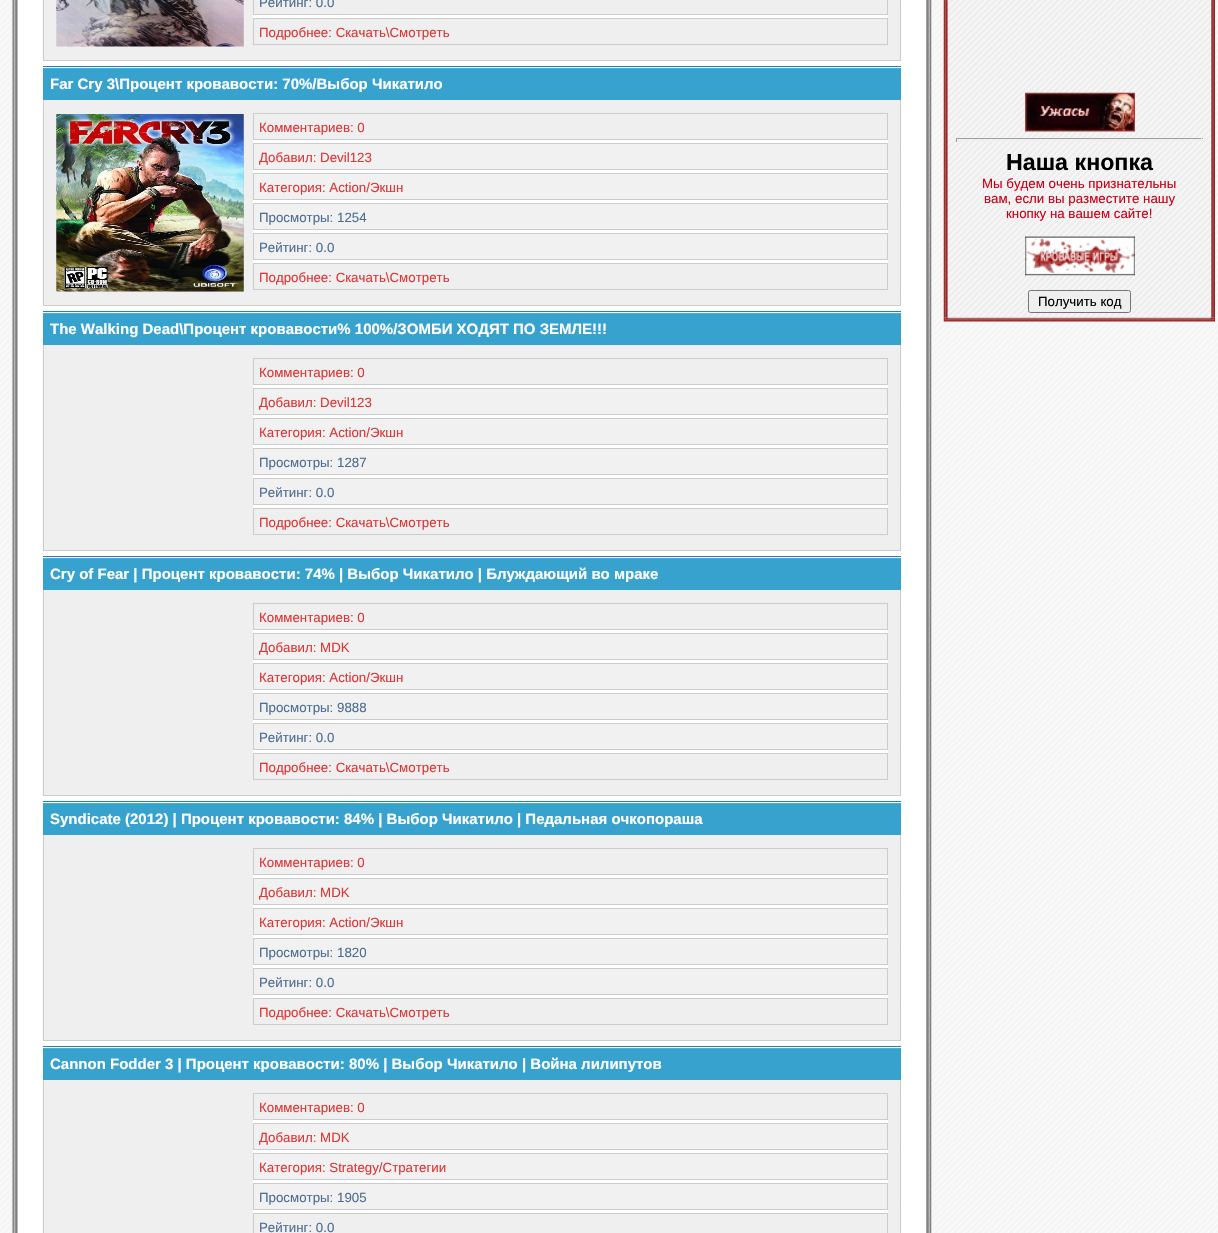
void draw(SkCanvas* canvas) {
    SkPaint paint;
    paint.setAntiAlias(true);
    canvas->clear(0xFFFFFFFF);
    canvas->drawImageRect(SkImages::DeferredFromEncodedData(SkData::MakeFromFileName("img1.png")), SkRect::MakeXYWH(0, 0, 1218, 1233), SkSamplingOptions());
    canvas->drawImageRect(SkImages::DeferredFromEncodedData(SkData::MakeFromFileName("img2.png")), SkRect::MakeXYWH(12, 0, 31, 1233), SkSamplingOptions());
    paint.setColor(0xFFFFFFFF);
    canvas->drawRect(SkRect::MakeXYWH(43, 61, 858, 987), paint);
    paint.setColor(0xFFEFEFEF);
    canvas->drawRect(SkRect::MakeXYWH(44, 0, 856, 60), paint);
    paint.setColor(0xFFCCCCCC);
    canvas->drawRect(SkRect::MakeXYWH(900, 0, 1, 61), paint);
    canvas->drawRect(SkRect::MakeXYWH(43, 60, 858, 1), paint);
    canvas->drawRect(SkRect::MakeXYWH(43, 0, 1, 61), paint);
    canvas->drawImageRect(SkImages::DeferredFromEncodedData(SkData::MakeFromFileName("img3.png")), SkRect::MakeXYWH(56, 0, 188, 47), SkSamplingOptions());
    paint.setColor(0xFFFFFFFF);
    canvas->drawRect(SkRect::MakeXYWH(253, 15, 635, 3), paint);
    paint.setStyle(SkPaint::kStroke_Style);
    paint.setStrokeWidth(1);
    paint.setColor(0xFFCCCCCC);
    canvas->drawRect(SkRect::MakeXYWH(253.5f, -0.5f, 634, 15), paint);
    SkFont font1(fontMgr->matchFamilyStyle("Liberation Sans", SkFontStyle::Normal()), 13.3f);
    font1.setSubpixel(true);
    paint.setStyle(SkPaint::kFill_Style);
    paint.setColor(0xFF4D6D91);
    canvas->drawString("Рейтинг: 0.0", 259, 7, font1, paint);
    paint.setStyle(SkPaint::kStroke_Style);
    paint.setColor(0xFFCCCCCC);
    canvas->drawRect(SkRect::MakeXYWH(253.5f, 18.5f, 634, 26), paint);
    paint.setStyle(SkPaint::kFill_Style);
    paint.setColor(0xFFDE3636);
    canvas->drawString("Подробнее: Скачать\\Смотреть", 259, 37, font1, paint);
    paint.setColor(0xFF1C87B2);
    canvas->drawRect(SkRect::MakeXYWH(43, 66, 858, 1), paint);
    paint.setColor(0xFF36A2CD);
    canvas->drawRect(SkRect::MakeXYWH(44, 69, 856, 31), paint);
    paint.setColor(0xFF44B0DA);
    canvas->drawRect(SkRect::MakeXYWH(43, 68, 858, 1), paint);
    paint.setColor(0xFF36A2CD);
    canvas->drawRect(SkRect::MakeXYWH(900, 68, 1, 32), paint);
    canvas->drawRect(SkRect::MakeXYWH(43, 68, 1, 32), paint);
    SkFont font2(fontMgr->matchFamilyStyle("Liberation Sans", SkFontStyle::Bold()), 15);
    font2.setSubpixel(true);
    paint.setColor(0xFFFFFFFF);
    canvas->drawString("Far Cry 3\\Процент кровавости: 70%/Выбор Чикатило", 50, 89, font2, paint);
    paint.setColor(0xFFEFEFEF);
    canvas->drawRect(SkRect::MakeXYWH(44, 100, 856, 205), paint);
    paint.setColor(0xFFCCCCCC);
    canvas->drawRect(SkRect::MakeXYWH(900, 100, 1, 206), paint);
    canvas->drawRect(SkRect::MakeXYWH(43, 305, 858, 1), paint);
    canvas->drawRect(SkRect::MakeXYWH(43, 100, 1, 206), paint);
    canvas->drawImageRect(SkImages::DeferredFromEncodedData(SkData::MakeFromFileName("img4.png")), SkRect::MakeXYWH(56, 114, 188, 178), SkSamplingOptions());
    paint.setColor(0xFFFFFFFF);
    canvas->drawRect(SkRect::MakeXYWH(253, 140, 635, 123), paint);
    paint.setStyle(SkPaint::kStroke_Style);
    paint.setColor(0xFFCCCCCC);
    canvas->drawRect(SkRect::MakeXYWH(253.5f, 113.5f, 634, 26), paint);
    paint.setStyle(SkPaint::kFill_Style);
    paint.setColor(0xFFDE3636);
    canvas->drawString("Комментариев: 0", 259, 132, font1, paint);
    paint.setColor(0xFFF1F1F1);
    canvas->drawRect(SkRect::MakeXYWH(253.5f, 143.5f, 634, 26), paint);
    paint.setStyle(SkPaint::kStroke_Style);
    paint.setColor(0xFFCCCCCC);
    canvas->drawRect(SkRect::MakeXYWH(253.5f, 143.5f, 634, 26), paint);
    paint.setStyle(SkPaint::kFill_Style);
    paint.setColor(0xFFDE3636);
    canvas->drawString("Добавил: Devil123", 259, 162, font1, paint);
    paint.setColor(0xFFF1F1F1);
    canvas->drawRect(SkRect::MakeXYWH(253.5f, 173.5f, 634, 26), paint);
    paint.setStyle(SkPaint::kStroke_Style);
    paint.setColor(0xFFCCCCCC);
    canvas->drawRect(SkRect::MakeXYWH(253.5f, 173.5f, 634, 26), paint);
    paint.setStyle(SkPaint::kFill_Style);
    paint.setColor(0xFFDE3636);
    canvas->drawString("Категория: Action/Экшн", 259, 192, font1, paint);
    paint.setColor(0xFFF1F1F1);
    canvas->drawRect(SkRect::MakeXYWH(253.5f, 203.5f, 634, 26), paint);
    paint.setStyle(SkPaint::kStroke_Style);
    paint.setColor(0xFFCCCCCC);
    canvas->drawRect(SkRect::MakeXYWH(253.5f, 203.5f, 634, 26), paint);
    paint.setStyle(SkPaint::kFill_Style);
    paint.setColor(0xFF4D6D91);
    canvas->drawString("Просмотры: 1254", 259, 222, font1, paint);
    paint.setColor(0xFFF1F1F1);
    canvas->drawRect(SkRect::MakeXYWH(253.5f, 233.5f, 634, 26), paint);
    paint.setStyle(SkPaint::kStroke_Style);
    paint.setColor(0xFFCCCCCC);
    canvas->drawRect(SkRect::MakeXYWH(253.5f, 233.5f, 634, 26), paint);
    paint.setStyle(SkPaint::kFill_Style);
    paint.setColor(0xFF4D6D91);
    canvas->drawString("Рейтинг: 0.0", 259, 252, font1, paint);
    paint.setStyle(SkPaint::kStroke_Style);
    paint.setColor(0xFFCCCCCC);
    canvas->drawRect(SkRect::MakeXYWH(253.5f, 263.5f, 634, 26), paint);
    paint.setStyle(SkPaint::kFill_Style);
    paint.setColor(0xFFDE3636);
    canvas->drawString("Подробнее: Скачать\\Смотреть", 259, 282, font1, paint);
    paint.setColor(0xFF1C87B2);
    canvas->drawRect(SkRect::MakeXYWH(43, 311, 858, 1), paint);
    paint.setColor(0xFF36A2CD);
    canvas->drawRect(SkRect::MakeXYWH(44, 314, 856, 31), paint);
    paint.setColor(0xFF44B0DA);
    canvas->drawRect(SkRect::MakeXYWH(43, 313, 858, 1), paint);
    paint.setColor(0xFF36A2CD);
    canvas->drawRect(SkRect::MakeXYWH(900, 313, 1, 32), paint);
    canvas->drawRect(SkRect::MakeXYWH(43, 313, 1, 32), paint);
    paint.setColor(0xFFFFFFFF);
    canvas->drawString("The Walking Dead\\Процент кровавости% 100%/ЗОМБИ ХОДЯТ ПО ЗЕМЛЕ!!!", 50, 334, font2, paint);
    paint.setColor(0xFFEFEFEF);
    canvas->drawRect(SkRect::MakeXYWH(44, 345, 856, 205), paint);
    paint.setColor(0xFFCCCCCC);
    canvas->drawRect(SkRect::MakeXYWH(900, 345, 1, 206), paint);
    canvas->drawRect(SkRect::MakeXYWH(43, 550, 858, 1), paint);
    canvas->drawRect(SkRect::MakeXYWH(43, 345, 1, 206), paint);
    paint.setColor(0xFFFFFFFF);
    canvas->drawRect(SkRect::MakeXYWH(253, 385, 635, 123), paint);
    paint.setStyle(SkPaint::kStroke_Style);
    paint.setColor(0xFFCCCCCC);
    canvas->drawRect(SkRect::MakeXYWH(253.5f, 358.5f, 634, 26), paint);
    paint.setStyle(SkPaint::kFill_Style);
    paint.setColor(0xFFDE3636);
    canvas->drawString("Комментариев: 0", 259, 377, font1, paint);
    paint.setColor(0xFFF1F1F1);
    canvas->drawRect(SkRect::MakeXYWH(253.5f, 388.5f, 634, 26), paint);
    paint.setStyle(SkPaint::kStroke_Style);
    paint.setColor(0xFFCCCCCC);
    canvas->drawRect(SkRect::MakeXYWH(253.5f, 388.5f, 634, 26), paint);
    paint.setStyle(SkPaint::kFill_Style);
    paint.setColor(0xFFDE3636);
    canvas->drawString("Добавил: Devil123", 259, 407, font1, paint);
    paint.setColor(0xFFF1F1F1);
    canvas->drawRect(SkRect::MakeXYWH(253.5f, 418.5f, 634, 26), paint);
    paint.setStyle(SkPaint::kStroke_Style);
    paint.setColor(0xFFCCCCCC);
    canvas->drawRect(SkRect::MakeXYWH(253.5f, 418.5f, 634, 26), paint);
    paint.setStyle(SkPaint::kFill_Style);
    paint.setColor(0xFFDE3636);
    canvas->drawString("Категория: Action/Экшн", 259, 437, font1, paint);
    paint.setColor(0xFFF1F1F1);
    canvas->drawRect(SkRect::MakeXYWH(253.5f, 448.5f, 634, 26), paint);
    paint.setStyle(SkPaint::kStroke_Style);
    paint.setColor(0xFFCCCCCC);
    canvas->drawRect(SkRect::MakeXYWH(253.5f, 448.5f, 634, 26), paint);
    paint.setStyle(SkPaint::kFill_Style);
    paint.setColor(0xFF4D6D91);
    canvas->drawString("Просмотры: 1287", 259, 467, font1, paint);
    paint.setColor(0xFFF1F1F1);
    canvas->drawRect(SkRect::MakeXYWH(253.5f, 478.5f, 634, 26), paint);
    paint.setStyle(SkPaint::kStroke_Style);
    paint.setColor(0xFFCCCCCC);
    canvas->drawRect(SkRect::MakeXYWH(253.5f, 478.5f, 634, 26), paint);
    paint.setStyle(SkPaint::kFill_Style);
    paint.setColor(0xFF4D6D91);
    canvas->drawString("Рейтинг: 0.0", 259, 497, font1, paint);
    paint.setStyle(SkPaint::kStroke_Style);
    paint.setColor(0xFFCCCCCC);
    canvas->drawRect(SkRect::MakeXYWH(253.5f, 508.5f, 634, 26), paint);
    paint.setStyle(SkPaint::kFill_Style);
    paint.setColor(0xFFDE3636);
    canvas->drawString("Подробнее: Скачать\\Смотреть", 259, 527, font1, paint);
    paint.setColor(0xFF1C87B2);
    canvas->drawRect(SkRect::MakeXYWH(43, 556, 858, 1), paint);
    paint.setColor(0xFF36A2CD);
    canvas->drawRect(SkRect::MakeXYWH(44, 559, 856, 31), paint);
    paint.setColor(0xFF44B0DA);
    canvas->drawRect(SkRect::MakeXYWH(43, 558, 858, 1), paint);
    paint.setColor(0xFF36A2CD);
    canvas->drawRect(SkRect::MakeXYWH(900, 558, 1, 32), paint);
    canvas->drawRect(SkRect::MakeXYWH(43, 558, 1, 32), paint);
    paint.setColor(0xFFFFFFFF);
    canvas->drawString("Cry of Fear | Процент кровавости: 74% | Выбор Чикатило | Блуждающий во мраке", 50, 579, font2, paint);
    paint.setColor(0xFFEFEFEF);
    canvas->drawRect(SkRect::MakeXYWH(44, 590, 856, 205), paint);
    paint.setColor(0xFFCCCCCC);
    canvas->drawRect(SkRect::MakeXYWH(900, 590, 1, 206), paint);
    canvas->drawRect(SkRect::MakeXYWH(43, 795, 858, 1), paint);
    canvas->drawRect(SkRect::MakeXYWH(43, 590, 1, 206), paint);
    paint.setColor(0xFFFFFFFF);
    canvas->drawRect(SkRect::MakeXYWH(253, 630, 635, 123), paint);
    paint.setStyle(SkPaint::kStroke_Style);
    paint.setColor(0xFFCCCCCC);
    canvas->drawRect(SkRect::MakeXYWH(253.5f, 603.5f, 634, 26), paint);
    paint.setStyle(SkPaint::kFill_Style);
    paint.setColor(0xFFDE3636);
    canvas->drawString("Комментариев: 0", 259, 622, font1, paint);
    paint.setColor(0xFFF1F1F1);
    canvas->drawRect(SkRect::MakeXYWH(253.5f, 633.5f, 634, 26), paint);
    paint.setStyle(SkPaint::kStroke_Style);
    paint.setColor(0xFFCCCCCC);
    canvas->drawRect(SkRect::MakeXYWH(253.5f, 633.5f, 634, 26), paint);
    paint.setStyle(SkPaint::kFill_Style);
    paint.setColor(0xFFDE3636);
    canvas->drawString("Добавил: MDK", 259, 652, font1, paint);
    paint.setColor(0xFFF1F1F1);
    canvas->drawRect(SkRect::MakeXYWH(253.5f, 663.5f, 634, 26), paint);
    paint.setStyle(SkPaint::kStroke_Style);
    paint.setColor(0xFFCCCCCC);
    canvas->drawRect(SkRect::MakeXYWH(253.5f, 663.5f, 634, 26), paint);
    paint.setStyle(SkPaint::kFill_Style);
    paint.setColor(0xFFDE3636);
    canvas->drawString("Категория: Action/Экшн", 259, 682, font1, paint);
    paint.setColor(0xFFF1F1F1);
    canvas->drawRect(SkRect::MakeXYWH(253.5f, 693.5f, 634, 26), paint);
    paint.setStyle(SkPaint::kStroke_Style);
    paint.setColor(0xFFCCCCCC);
    canvas->drawRect(SkRect::MakeXYWH(253.5f, 693.5f, 634, 26), paint);
    paint.setStyle(SkPaint::kFill_Style);
    paint.setColor(0xFF4D6D91);
    canvas->drawString("Просмотры: 9888", 259, 712, font1, paint);
    paint.setColor(0xFFF1F1F1);
    canvas->drawRect(SkRect::MakeXYWH(253.5f, 723.5f, 634, 26), paint);
    paint.setStyle(SkPaint::kStroke_Style);
    paint.setColor(0xFFCCCCCC);
    canvas->drawRect(SkRect::MakeXYWH(253.5f, 723.5f, 634, 26), paint);
    paint.setStyle(SkPaint::kFill_Style);
    paint.setColor(0xFF4D6D91);
    canvas->drawString("Рейтинг: 0.0", 259, 742, font1, paint);
    paint.setStyle(SkPaint::kStroke_Style);
    paint.setColor(0xFFCCCCCC);
    canvas->drawRect(SkRect::MakeXYWH(253.5f, 753.5f, 634, 26), paint);
    paint.setStyle(SkPaint::kFill_Style);
    paint.setColor(0xFFDE3636);
    canvas->drawString("Подробнее: Скачать\\Смотреть", 259, 772, font1, paint);
    paint.setColor(0xFF1C87B2);
    canvas->drawRect(SkRect::MakeXYWH(43, 801, 858, 1), paint);
    paint.setColor(0xFF36A2CD);
    canvas->drawRect(SkRect::MakeXYWH(44, 804, 856, 31), paint);
    paint.setColor(0xFF44B0DA);
    canvas->drawRect(SkRect::MakeXYWH(43, 803, 858, 1), paint);
    paint.setColor(0xFF36A2CD);
    canvas->drawRect(SkRect::MakeXYWH(900, 803, 1, 32), paint);
    canvas->drawRect(SkRect::MakeXYWH(43, 803, 1, 32), paint);
    paint.setColor(0xFFFFFFFF);
    canvas->drawString("Syndicate (2012) | Процент кровавости: 84% | Выбор Чикатило | Педальная очкопораша", 50, 824, font2, paint);
    paint.setColor(0xFFEFEFEF);
    canvas->drawRect(SkRect::MakeXYWH(44, 835, 856, 205), paint);
    paint.setColor(0xFFCCCCCC);
    canvas->drawRect(SkRect::MakeXYWH(900, 835, 1, 206), paint);
    canvas->drawRect(SkRect::MakeXYWH(43, 1040, 858, 1), paint);
    canvas->drawRect(SkRect::MakeXYWH(43, 835, 1, 206), paint);
    paint.setColor(0xFFFFFFFF);
    canvas->drawRect(SkRect::MakeXYWH(253, 875, 635, 123), paint);
    paint.setStyle(SkPaint::kStroke_Style);
    paint.setColor(0xFFCCCCCC);
    canvas->drawRect(SkRect::MakeXYWH(253.5f, 848.5f, 634, 26), paint);
    paint.setStyle(SkPaint::kFill_Style);
    paint.setColor(0xFFDE3636);
    canvas->drawString("Комментариев: 0", 259, 867, font1, paint);
    paint.setColor(0xFFF1F1F1);
    canvas->drawRect(SkRect::MakeXYWH(253.5f, 878.5f, 634, 26), paint);
    paint.setStyle(SkPaint::kStroke_Style);
    paint.setColor(0xFFCCCCCC);
    canvas->drawRect(SkRect::MakeXYWH(253.5f, 878.5f, 634, 26), paint);
    paint.setStyle(SkPaint::kFill_Style);
    paint.setColor(0xFFDE3636);
    canvas->drawString("Добавил: MDK", 259, 897, font1, paint);
    paint.setColor(0xFFF1F1F1);
    canvas->drawRect(SkRect::MakeXYWH(253.5f, 908.5f, 634, 26), paint);
    paint.setStyle(SkPaint::kStroke_Style);
    paint.setColor(0xFFCCCCCC);
    canvas->drawRect(SkRect::MakeXYWH(253.5f, 908.5f, 634, 26), paint);
    paint.setStyle(SkPaint::kFill_Style);
    paint.setColor(0xFFDE3636);
    canvas->drawString("Категория: Action/Экшн", 259, 927, font1, paint);
    paint.setColor(0xFFF1F1F1);
    canvas->drawRect(SkRect::MakeXYWH(253.5f, 938.5f, 634, 26), paint);
    paint.setStyle(SkPaint::kStroke_Style);
    paint.setColor(0xFFCCCCCC);
    canvas->drawRect(SkRect::MakeXYWH(253.5f, 938.5f, 634, 26), paint);
    paint.setStyle(SkPaint::kFill_Style);
    paint.setColor(0xFF4D6D91);
    canvas->drawString("Просмотры: 1820", 259, 957, font1, paint);
    paint.setColor(0xFFF1F1F1);
    canvas->drawRect(SkRect::MakeXYWH(253.5f, 968.5f, 634, 26), paint);
    paint.setStyle(SkPaint::kStroke_Style);
    paint.setColor(0xFFCCCCCC);
    canvas->drawRect(SkRect::MakeXYWH(253.5f, 968.5f, 634, 26), paint);
    paint.setStyle(SkPaint::kFill_Style);
    paint.setColor(0xFF4D6D91);
    canvas->drawString("Рейтинг: 0.0", 259, 987, font1, paint);
    paint.setStyle(SkPaint::kStroke_Style);
    paint.setColor(0xFFCCCCCC);
    canvas->drawRect(SkRect::MakeXYWH(253.5f, 998.5f, 634, 26), paint);
    paint.setStyle(SkPaint::kFill_Style);
    paint.setColor(0xFFDE3636);
    canvas->drawString("Подробнее: Скачать\\Смотреть", 259, 1017, font1, paint);
    paint.setColor(0xFF1C87B2);
    canvas->drawRect(SkRect::MakeXYWH(43, 1046, 858, 1), paint);
    paint.setColor(0xFF36A2CD);
    canvas->drawRect(SkRect::MakeXYWH(44, 1049, 856, 31), paint);
    paint.setColor(0xFF44B0DA);
    canvas->drawRect(SkRect::MakeXYWH(43, 1048, 858, 1), paint);
    paint.setColor(0xFF36A2CD);
    canvas->drawRect(SkRect::MakeXYWH(900, 1048, 1, 32), paint);
    canvas->drawRect(SkRect::MakeXYWH(43, 1048, 1, 32), paint);
    paint.setColor(0xFFFFFFFF);
    canvas->drawString("Cannon Fodder 3 | Процент кровавости: 80% | Выбор Чикатило | Война лилипутов", 50, 1069, font2, paint);
    paint.setColor(0xFFEFEFEF);
    canvas->drawRect(SkRect::MakeXYWH(44, 1080, 856, 153), paint);
    paint.setColor(0xFFCCCCCC);
    canvas->drawRect(SkRect::MakeXYWH(900, 1080, 1, 153), paint);
    canvas->drawRect(SkRect::MakeXYWH(43, 1080, 1, 153), paint);
    paint.setColor(0xFFFFFFFF);
    canvas->drawRect(SkRect::MakeXYWH(253, 1120, 635, 93), paint);
    paint.setStyle(SkPaint::kStroke_Style);
    paint.setColor(0xFFCCCCCC);
    canvas->drawRect(SkRect::MakeXYWH(253.5f, 1093.5f, 634, 26), paint);
    paint.setStyle(SkPaint::kFill_Style);
    paint.setColor(0xFFDE3636);
    canvas->drawString("Комментариев: 0", 259, 1112, font1, paint);
    paint.setColor(0xFFF1F1F1);
    canvas->drawRect(SkRect::MakeXYWH(253.5f, 1123.5f, 634, 26), paint);
    paint.setStyle(SkPaint::kStroke_Style);
    paint.setColor(0xFFCCCCCC);
    canvas->drawRect(SkRect::MakeXYWH(253.5f, 1123.5f, 634, 26), paint);
    paint.setStyle(SkPaint::kFill_Style);
    paint.setColor(0xFFDE3636);
    canvas->drawString("Добавил: MDK", 259, 1142, font1, paint);
    paint.setColor(0xFFF1F1F1);
    canvas->drawRect(SkRect::MakeXYWH(253.5f, 1153.5f, 634, 26), paint);
    paint.setStyle(SkPaint::kStroke_Style);
    paint.setColor(0xFFCCCCCC);
    canvas->drawRect(SkRect::MakeXYWH(253.5f, 1153.5f, 634, 26), paint);
    paint.setStyle(SkPaint::kFill_Style);
    paint.setColor(0xFFDE3636);
    canvas->drawString("Категория: Strategy/Стратегии", 259, 1172, font1, paint);
    paint.setColor(0xFFF1F1F1);
    canvas->drawRect(SkRect::MakeXYWH(253.5f, 1183.5f, 634, 26), paint);
    paint.setStyle(SkPaint::kStroke_Style);
    paint.setColor(0xFFCCCCCC);
    canvas->drawRect(SkRect::MakeXYWH(253.5f, 1183.5f, 634, 26), paint);
    paint.setStyle(SkPaint::kFill_Style);
    paint.setColor(0xFF4D6D91);
    canvas->drawString("Просмотры: 1905", 259, 1202, font1, paint);
    paint.setStyle(SkPaint::kStroke_Style);
    paint.setColor(0xFFCCCCCC);
    canvas->drawRect(SkRect::MakeXYWH(253.5f, 1213.5f, 634, 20), paint);
    paint.setStyle(SkPaint::kFill_Style);
    paint.setColor(0xFF4D6D91);
    canvas->drawString("Рейтинг: 0.0", 259, 1232, font1, paint);
    canvas->drawImageRect(SkImages::DeferredFromEncodedData(SkData::MakeFromFileName("img5.png")), SkRect::MakeXYWH(901, 0, 31, 1233), SkSamplingOptions());
    canvas->drawImageRect(SkImages::DeferredFromEncodedData(SkData::MakeFromFileName("img6.png")), SkRect::MakeXYWH(943, 0, 272, 318), SkSamplingOptions());
    canvas->drawImageRect(SkImages::DeferredFromEncodedData(SkData::MakeFromFileName("img7.png")), SkRect::MakeXYWH(1025, 92, 110, 40), SkSamplingOptions());
    paint.setColor(0xFF9F9F9F);
    canvas->drawRect(SkRect::MakeXYWH(956, 138, 247, 1), paint);
    paint.setColor(0xFFEEEEEE);
    canvas->drawRect(SkRect::MakeXYWH(1201, 138, 1, 4), paint);
    canvas->drawRect(SkRect::MakeXYWH(956, 140, 247, 1), paint);
    paint.setColor(0xFF9F9F9F);
    canvas->drawRect(SkRect::MakeXYWH(956, 138, 1, 4), paint);
    SkFont font3(fontMgr->matchFamilyStyle("Liberation Sans", SkFontStyle::Bold()), 23.25f);
    font3.setSubpixel(true);
    paint.setColor(0xFF000000);
    canvas->drawString("Наша кнопка", 1006, 170, font3, paint);
    paint.setColor(0xFFCC0017);
    canvas->drawString("Мы будем очень признательны", 982, 188, font1, paint);
    canvas->drawString("вам, если вы разместите нашу", 984, 203, font1, paint);
    canvas->drawString("кнопку на вашем сайте!", 1006, 218, font1, paint);
    canvas->drawImageRect(SkImages::DeferredFromEncodedData(SkData::MakeFromFileName("img8.png")), SkRect::MakeXYWH(1025, 236, 110, 40), SkSamplingOptions());
    paint.setColor(0xFFEFEFEF);
    canvas->drawRoundRect(SkRect::MakeXYWH(1028.5f, 290.5f, 102, 22), 2, 2, paint);
    paint.setStyle(SkPaint::kStroke_Style);
    paint.setColor(0xFF767676);
    canvas->drawRoundRect(SkRect::MakeXYWH(1028.5f, 290.5f, 102, 22), 2, 2, paint);
    paint.setStyle(SkPaint::kFill_Style);
    paint.setColor(0xFF000000);
    canvas->drawString("Получить код", 1038, 306, font1, paint);
    canvas->drawImageRect(SkImages::DeferredFromEncodedData(SkData::MakeFromFileName("img9.png")), SkRect::MakeXYWH(943, 317, 272, 5), SkSamplingOptions());
}
